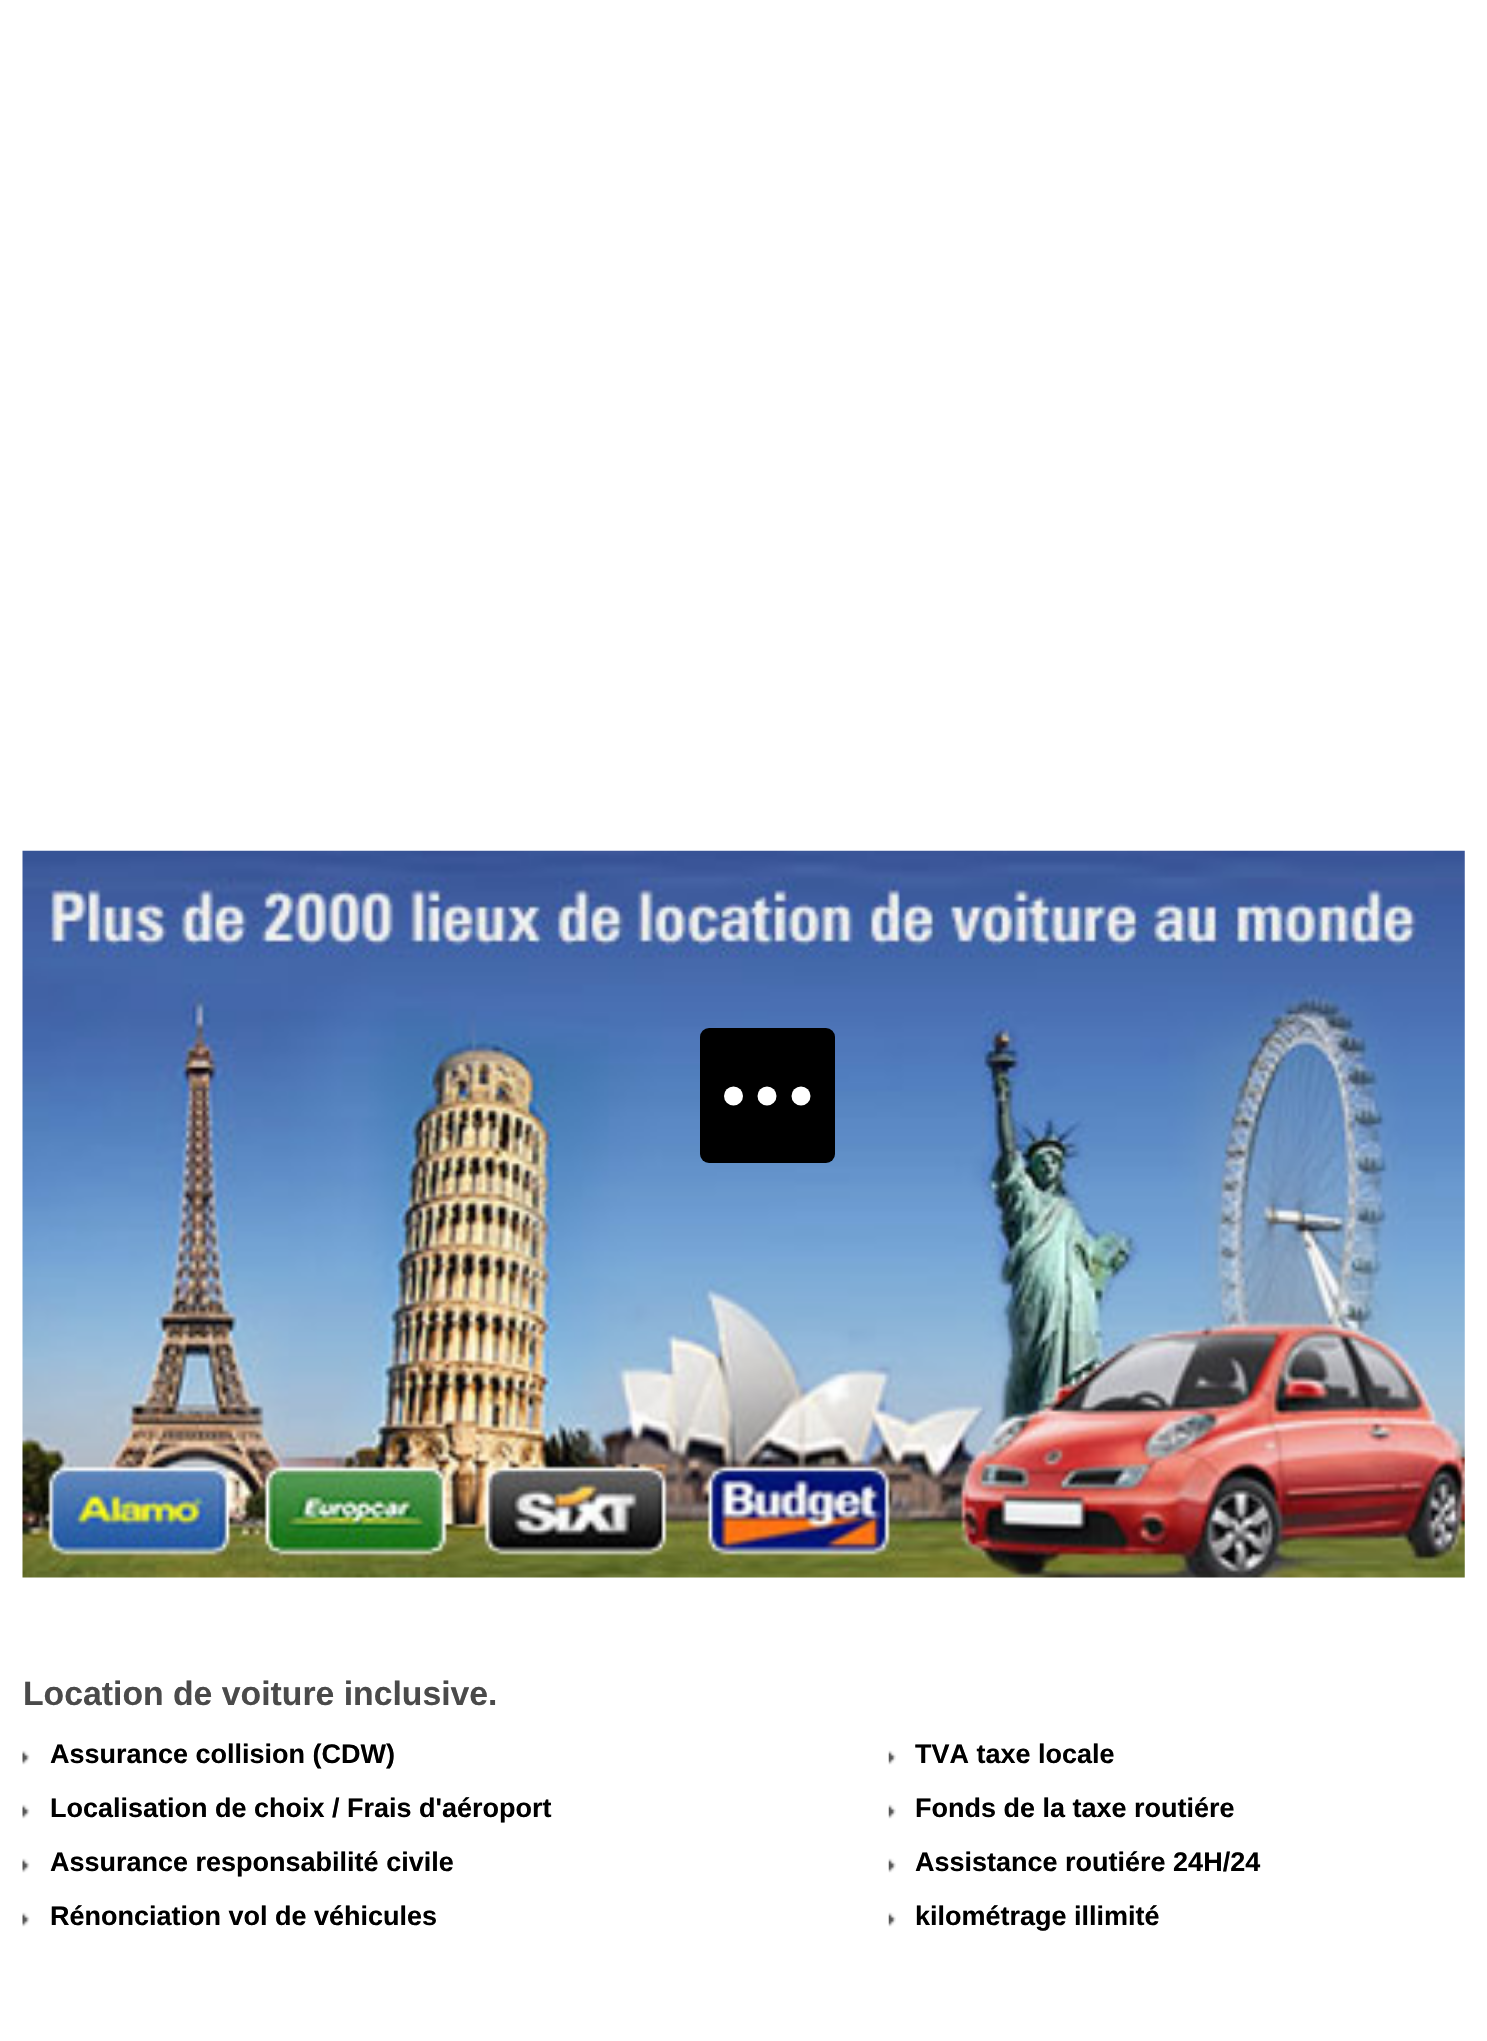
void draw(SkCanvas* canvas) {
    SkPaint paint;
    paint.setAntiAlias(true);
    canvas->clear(0xFFFFFFFF);
    canvas->drawImageRect(SkImages::DeferredFromEncodedData(SkData::MakeFromFileName("img1.png")), SkRect::MakeXYWH(22, 850, 1443, 728), SkSamplingOptions());
    paint.setColor(0xFF000000);
    canvas->drawRoundRect(SkRect::MakeXYWH(700, 1028, 135, 135), 9, 9, paint);
    paint.setColor(0xFFFFFFFF);
    canvas->drawCircle(733.5f, 1096, 9.5f, paint);
    canvas->drawCircle(767, 1096, 9.5f, paint);
    canvas->drawCircle(801, 1096, 9.5f, paint);
    SkFont font1(fontMgr->matchFamilyStyle("Liberation Sans", SkFontStyle::Bold()), 33.75f);
    font1.setSubpixel(true);
    paint.setColor(0xFF4A4A4A);
    canvas->drawString("Location de voiture inclusive.", 23, 1705, font1, paint);
    canvas->drawImageRect(SkImages::DeferredFromEncodedData(SkData::MakeFromFileName("img2.png")), SkRect::MakeXYWH(22, 1750, 8, 15), SkSamplingOptions());
    SkFont font2(fontMgr->matchFamilyStyle("Liberation Sans", SkFontStyle::Bold()), 27);
    font2.setSubpixel(true);
    paint.setColor(0xFF000000);
    canvas->drawString("Assurance collision (CDW)", 50, 1763, font2, paint);
    canvas->drawImageRect(SkImages::DeferredFromEncodedData(SkData::MakeFromFileName("img2.png")), SkRect::MakeXYWH(22, 1804, 8, 15), SkSamplingOptions());
    canvas->drawString("Localisation de choix / Frais d'aéroport", 50, 1817, font2, paint);
    canvas->drawImageRect(SkImages::DeferredFromEncodedData(SkData::MakeFromFileName("img2.png")), SkRect::MakeXYWH(22, 1858, 8, 15), SkSamplingOptions());
    canvas->drawString("Assurance responsabilité civile", 50, 1871, font2, paint);
    canvas->drawImageRect(SkImages::DeferredFromEncodedData(SkData::MakeFromFileName("img2.png")), SkRect::MakeXYWH(22, 1912, 8, 15), SkSamplingOptions());
    canvas->drawString("Rénonciation vol de véhicules", 50, 1925, font2, paint);
    canvas->drawImageRect(SkImages::DeferredFromEncodedData(SkData::MakeFromFileName("img3.png")), SkRect::MakeXYWH(888, 1750, 8, 15), SkSamplingOptions());
    canvas->drawString("TVA taxe locale", 915, 1763, font2, paint);
    canvas->drawImageRect(SkImages::DeferredFromEncodedData(SkData::MakeFromFileName("img3.png")), SkRect::MakeXYWH(888, 1804, 8, 15), SkSamplingOptions());
    canvas->drawString("Fonds de la taxe routiére", 915, 1817, font2, paint);
    canvas->drawImageRect(SkImages::DeferredFromEncodedData(SkData::MakeFromFileName("img3.png")), SkRect::MakeXYWH(888, 1858, 8, 15), SkSamplingOptions());
    canvas->drawString("Assistance routiére 24H/24", 915, 1871, font2, paint);
    canvas->drawImageRect(SkImages::DeferredFromEncodedData(SkData::MakeFromFileName("img3.png")), SkRect::MakeXYWH(888, 1912, 8, 15), SkSamplingOptions());
    canvas->drawString("kilométrage illimité", 915, 1925, font2, paint);
}
